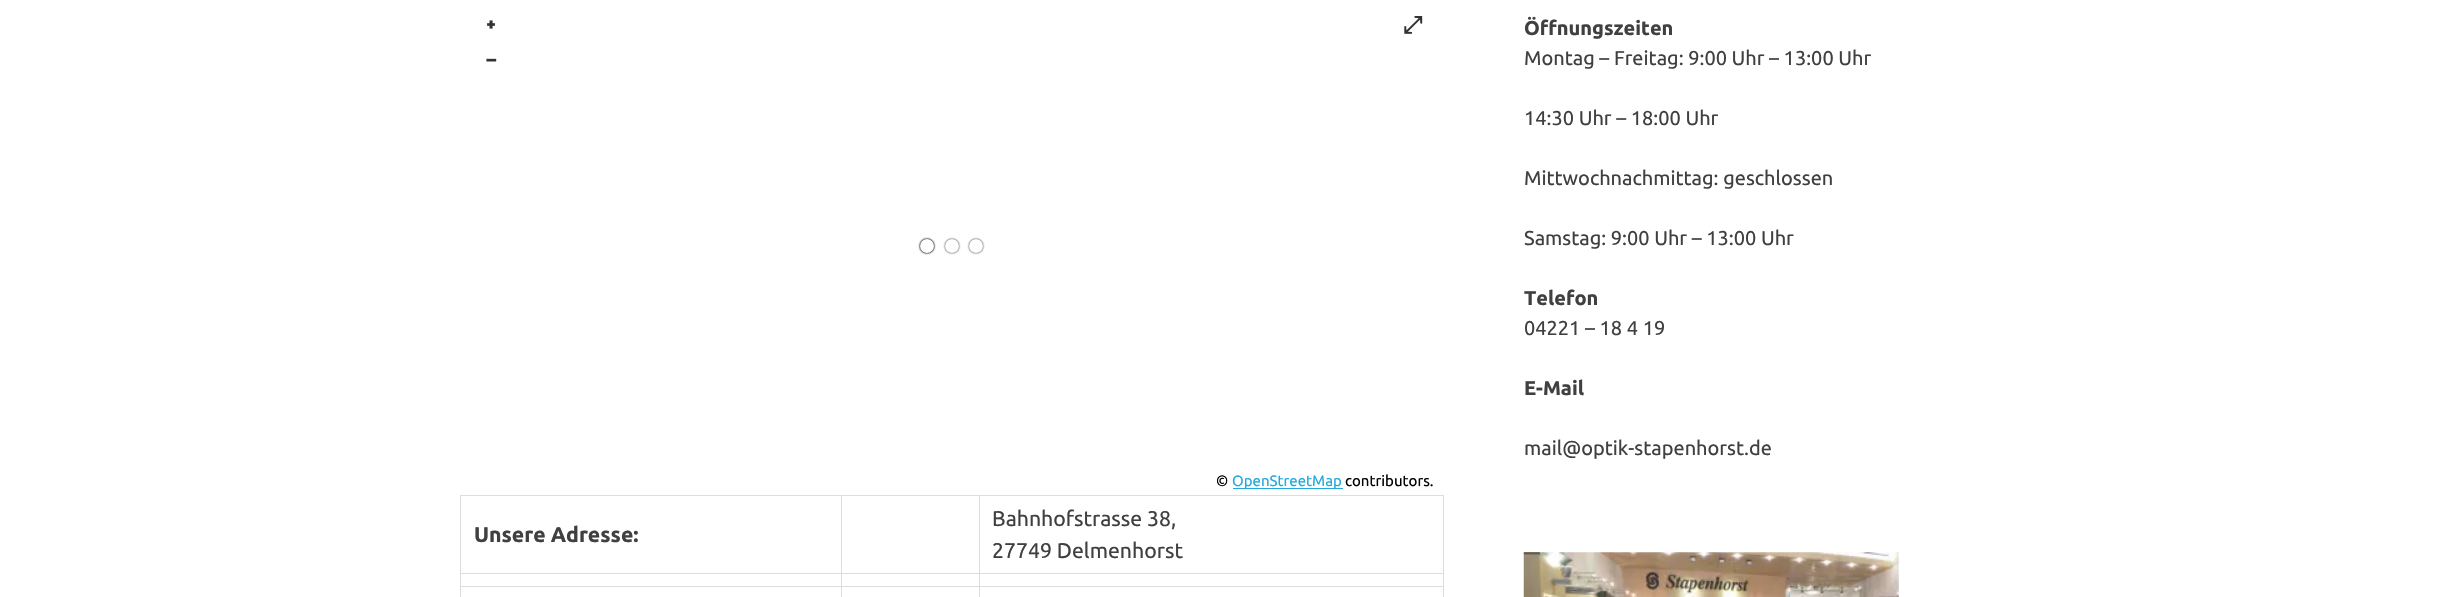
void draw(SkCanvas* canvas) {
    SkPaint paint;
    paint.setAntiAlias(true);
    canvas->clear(0xFFFFFFFF);
    SkFont font1(fontMgr->matchFamilyStyle("Raleway", SkFontStyle::Bold()), 24);
    font1.setSubpixel(true);
    paint.setColor(0xFF333333);
    canvas->drawString("+", 486, 33, font1, paint);
    canvas->drawString("−", 485, 68, font1, paint);
    SkFont font2(fontMgr->matchFamilyStyle("FreeSerif", SkFontStyle::Bold()), 24);
    font2.setSubpixel(true);
    canvas->drawString("⤢", 1403, 33, font2, paint);
    SkFont font3(fontMgr->matchFamilyStyle("Ubuntu", SkFontStyle::Normal()), 15);
    font3.setSubpixel(true);
    paint.setColor(0xFF000000);
    canvas->drawString("©", 1216, 486, font3, paint);
    paint.setColor(0xFF22AADD);
    canvas->drawRect(SkRect::MakeXYWH(1233, 488, 110, 1), paint);
    canvas->drawString("OpenStreetMap", 1232, 486, font3, paint);
    paint.setColor(0xFF000000);
    canvas->drawString("contributors.", 1345, 486, font3, paint);
    paint.setMaskFilter(SkMaskFilter::MakeBlur(kNormal_SkBlurStyle, 1));
    canvas->drawRoundRect(SkRect::MakeXYWH(920, 239, 14, 14), 7, 7, paint);
    paint.setMaskFilter(nullptr);
    paint.setMaskFilter(SkMaskFilter::MakeBlur(kNormal_SkBlurStyle, 1));
    canvas->drawRoundRect(SkRect::MakeXYWH(920, 239, 14, 14), 7, 7, paint);
    paint.setMaskFilter(nullptr);
    paint.setColor(0xFFFFFFFF);
    canvas->drawCircle(927, 246, 7, paint);
    paint.setColor(0xFF000000);
    paint.setMaskFilter(SkMaskFilter::MakeBlur(kNormal_SkBlurStyle, 1));
    canvas->drawRoundRect(SkRect::MakeXYWH(945, 239, 14, 14), 7, 7, paint);
    paint.setMaskFilter(nullptr);
    paint.setColor(0xFFFFFFFF);
    canvas->drawCircle(952, 246, 7, paint);
    paint.setColor(0xFF000000);
    paint.setMaskFilter(SkMaskFilter::MakeBlur(kNormal_SkBlurStyle, 1));
    canvas->drawRoundRect(SkRect::MakeXYWH(969, 239, 14, 14), 7, 7, paint);
    paint.setMaskFilter(nullptr);
    paint.setColor(0xFFFFFFFF);
    canvas->drawCircle(976, 246, 7, paint);
    paint.setColor(0xFFDDDDDD);
    canvas->drawRect(SkRect::MakeXYWH(979, 495, 465, 1), paint);
    canvas->drawRect(SkRect::MakeXYWH(979, 573, 465, 1), paint);
    canvas->drawRect(SkRect::MakeXYWH(979, 586, 465, 1), paint);
    canvas->drawRect(SkRect::MakeXYWH(979, 586, 1, 11), paint);
    canvas->drawRect(SkRect::MakeXYWH(841, 586, 139, 1), paint);
    canvas->drawRect(SkRect::MakeXYWH(979, 573, 1, 15), paint);
    canvas->drawRect(SkRect::MakeXYWH(841, 573, 139, 1), paint);
    canvas->drawRect(SkRect::MakeXYWH(979, 495, 1, 79), paint);
    canvas->drawRect(SkRect::MakeXYWH(841, 495, 139, 1), paint);
    canvas->drawRect(SkRect::MakeXYWH(841, 586, 1, 11), paint);
    canvas->drawRect(SkRect::MakeXYWH(460, 586, 383, 1), paint);
    canvas->drawRect(SkRect::MakeXYWH(841, 573, 1, 15), paint);
    canvas->drawRect(SkRect::MakeXYWH(460, 573, 383, 1), paint);
    canvas->drawRect(SkRect::MakeXYWH(841, 495, 1, 79), paint);
    canvas->drawRect(SkRect::MakeXYWH(460, 495, 383, 1), paint);
    canvas->drawRect(SkRect::MakeXYWH(460, 586, 1, 11), paint);
    canvas->drawRect(SkRect::MakeXYWH(460, 573, 1, 15), paint);
    canvas->drawRect(SkRect::MakeXYWH(460, 495, 1, 79), paint);
    SkFont font4(fontMgr->matchFamilyStyle("Ubuntu", SkFontStyle::Bold()), 21.25f);
    font4.setSubpixel(true);
    paint.setColor(0xFF404040);
    canvas->drawString("Unsere Adresse:", 474, 542, font4, paint);
    paint.setColor(0xFFDDDDDD);
    canvas->drawRect(SkRect::MakeXYWH(1443, 586, 1, 11), paint);
    canvas->drawRect(SkRect::MakeXYWH(1443, 573, 1, 15), paint);
    canvas->drawRect(SkRect::MakeXYWH(1443, 495, 1, 79), paint);
    SkFont font5(fontMgr->matchFamilyStyle("Ubuntu", SkFontStyle::Normal()), 21.25f);
    font5.setSubpixel(true);
    paint.setColor(0xFF404040);
    canvas->drawString("Bahnhofstrasse 38,", 992, 526, font5, paint);
    canvas->drawString("27749 Delmenhorst", 992, 558, font5, paint);
    SkFont font6(fontMgr->matchFamilyStyle("Ubuntu", SkFontStyle::Bold()), 20);
    font6.setSubpixel(true);
    canvas->drawString("Öffnungszeiten", 1524, 35, font6, paint);
    SkFont font7(fontMgr->matchFamilyStyle("Ubuntu", SkFontStyle::Normal()), 20);
    font7.setSubpixel(true);
    canvas->drawString("Montag – Freitag: 9:00 Uhr – 13:00 Uhr", 1524, 65, font7, paint);
    canvas->drawString("14:30 Uhr – 18:00 Uhr", 1524, 125, font7, paint);
    canvas->drawString("Mittwochnachmittag: geschlossen", 1524, 185, font7, paint);
    canvas->drawString("Samstag: 9:00 Uhr – 13:00 Uhr", 1524, 245, font7, paint);
    canvas->drawString("Telefon", 1524, 305, font6, paint);
    canvas->drawString("04221 – 18 4 19", 1524, 335, font7, paint);
    canvas->drawString("E-Mail", 1524, 395, font6, paint);
    canvas->drawString("mail@optik-stapenhorst.de", 1524, 455, font7, paint);
    canvas->drawImageRect(SkImages::DeferredFromEncodedData(SkData::MakeFromFileName("img1.png")), SkRect::MakeXYWH(1523, 552, 376, 45), SkSamplingOptions());
}
